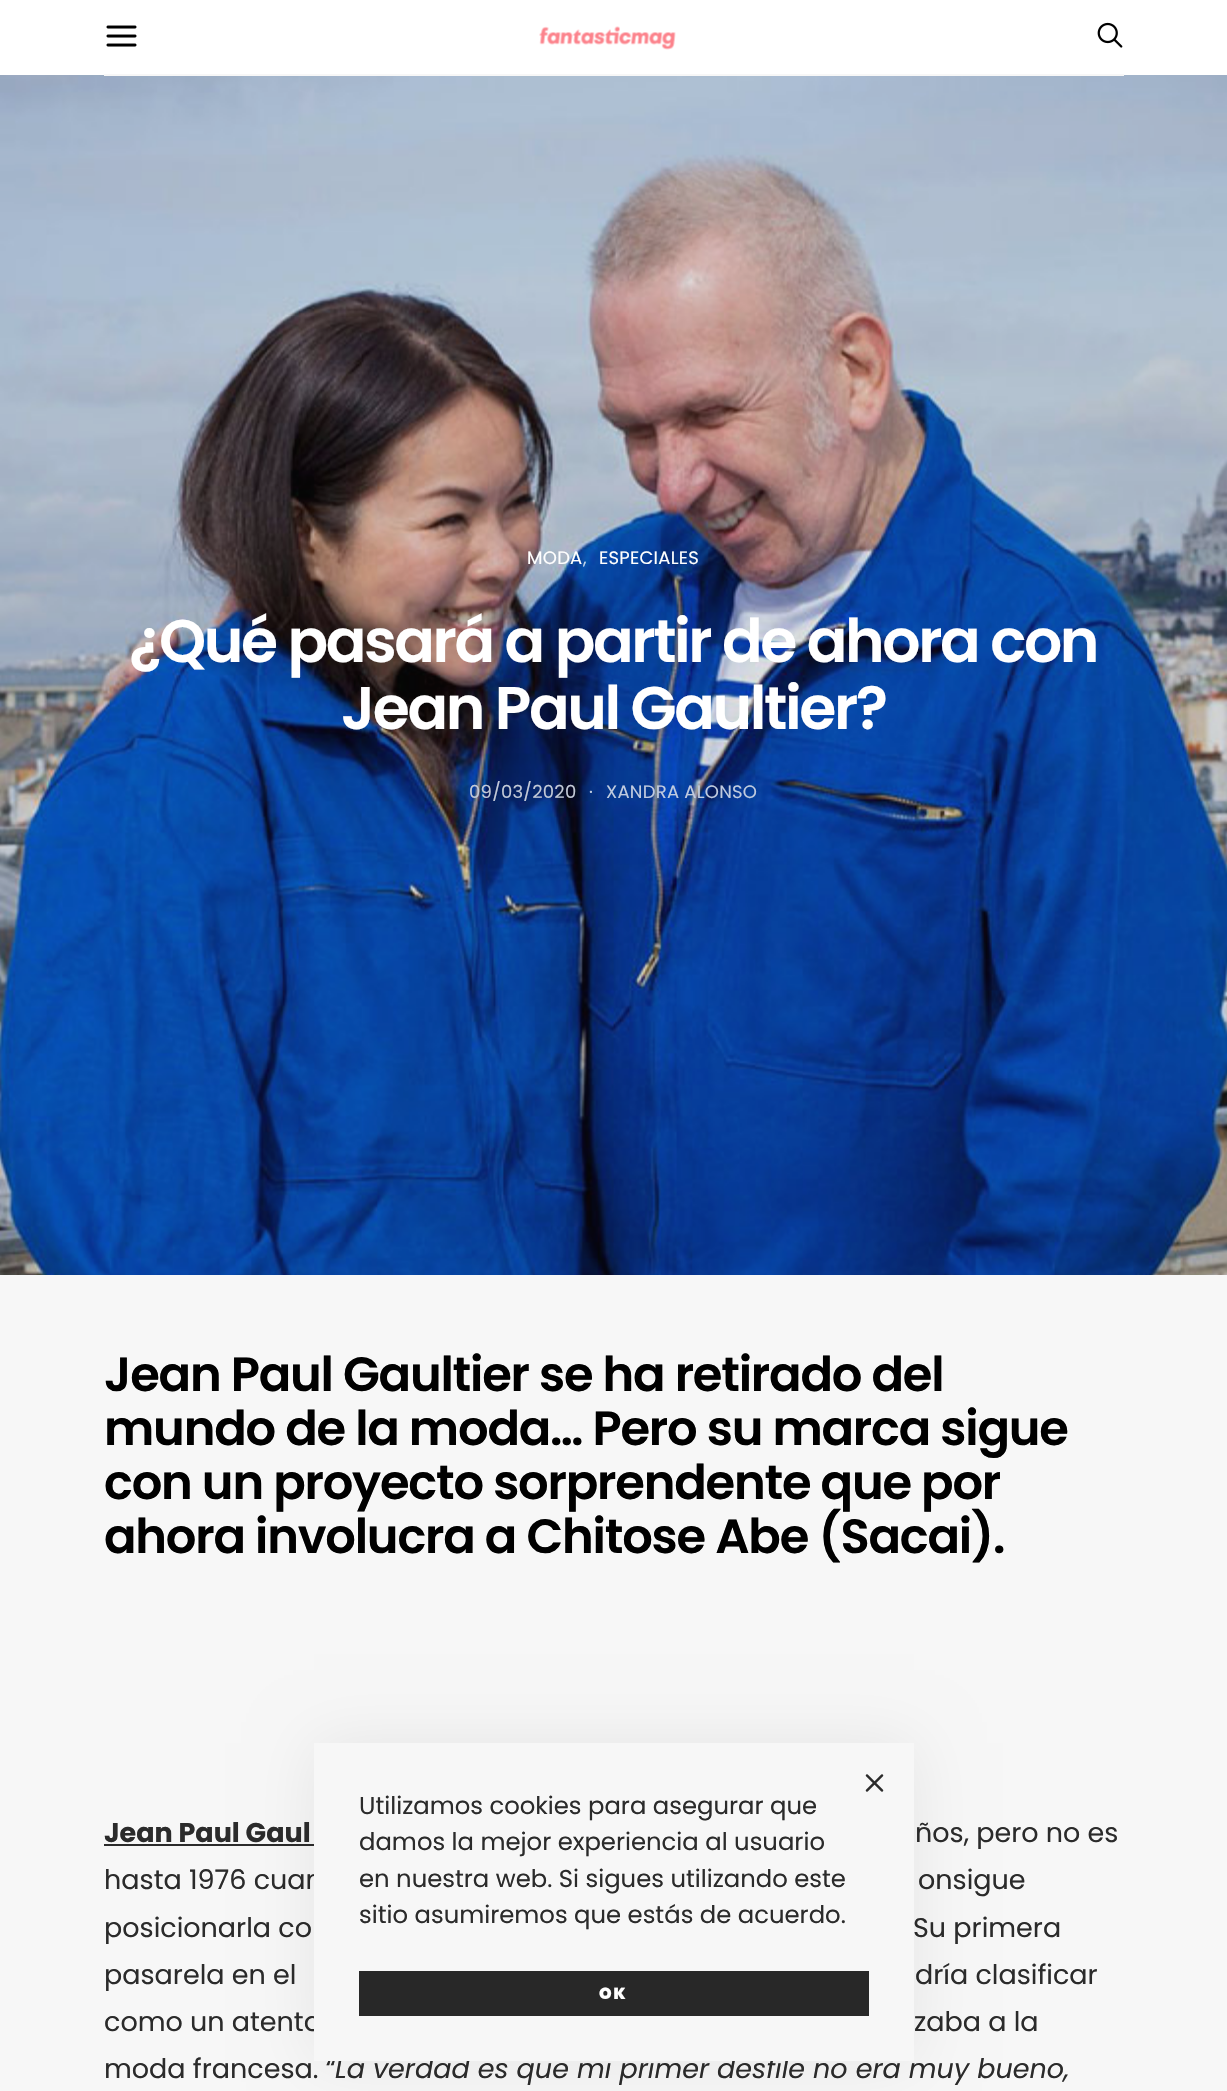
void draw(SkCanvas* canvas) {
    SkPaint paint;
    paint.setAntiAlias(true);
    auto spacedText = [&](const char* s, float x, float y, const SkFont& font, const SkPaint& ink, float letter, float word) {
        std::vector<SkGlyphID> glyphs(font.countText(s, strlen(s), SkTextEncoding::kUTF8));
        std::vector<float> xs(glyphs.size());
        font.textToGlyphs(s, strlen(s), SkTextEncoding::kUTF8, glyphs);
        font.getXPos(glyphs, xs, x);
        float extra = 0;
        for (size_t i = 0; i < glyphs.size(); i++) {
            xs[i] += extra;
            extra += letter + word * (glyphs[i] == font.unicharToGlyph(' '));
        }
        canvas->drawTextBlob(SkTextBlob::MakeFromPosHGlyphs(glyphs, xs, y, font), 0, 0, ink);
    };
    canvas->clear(0xFFF7F7F7);
    paint.setColor(0xFFFFFFFF);
    canvas->drawRect(SkRect::MakeXYWH(0, 0, 1227, 75), paint);
    canvas->drawImageRect(SkImages::DeferredFromEncodedData(SkData::MakeFromFileName("img4.png")), SkRect::MakeXYWH(0, 75, 1227, 1200), SkSamplingOptions());
    paint.setColor(0xFFF7F7F7);
    canvas->drawRect(SkRect::MakeXYWH(104, 74, 1020, 2), paint);
    canvas->drawImageRect(SkImages::DeferredFromEncodedData(SkData::MakeFromFileName("img1.png")), SkRect::MakeXYWH(106, 25, 31, 22), SkSamplingOptions());
    canvas->drawImageRect(SkImages::DeferredFromEncodedData(SkData::MakeFromFileName("img2.png")), SkRect::MakeXYWH(539, 26, 137, 24), SkSamplingOptions());
    canvas->drawImageRect(SkImages::DeferredFromEncodedData(SkData::MakeFromFileName("img3.png")), SkRect::MakeXYWH(1097, 22, 26, 26), SkSamplingOptions());
    SkFont font1(fontMgr->matchFamilyStyle("Poppins", SkFontStyle::Normal()), 18);
    font1.setSubpixel(true);
    paint.setColor(0xFFFFFFFF);
    spacedText("MODA", 527, 564, font1, paint, 0.25f, 0);
    paint.setColor(0xFFC1D4EA);
    spacedText(",", 583, 564, font1, paint, 0.25f, 0);
    paint.setColor(0xFFFFFFFF);
    spacedText("ESPECIALES", 599, 564, font1, paint, 0.25f, 0);
    SkFont font2(fontMgr->matchFamilyStyle("Poppins", SkFontStyle(600, SkFontStyle::kNormal_Width, SkFontStyle::kUpright_Slant)), 60);
    font2.setSubpixel(true);
    spacedText("¿Qué pasará a partir de ahora con", 129, 662, font2, paint, -2.4f, 0);
    spacedText("Jean Paul Gaultier?", 341, 729, font2, paint, -2.4f, 0);
    paint.setColor(0xFFC2C9D7);
    spacedText("09/03/2020", 469, 798, font1, paint, 0.25f, 0);
    paint.setColor(0xFFC0CBDF);
    spacedText("·", 589, 798, font1, paint, 0.25f, 0);
    spacedText("XANDRA ALONSO", 606, 798, font1, paint, 0.25f, 0);
    SkFont font3(fontMgr->matchFamilyStyle("Poppins", SkFontStyle(600, SkFontStyle::kNormal_Width, SkFontStyle::kUpright_Slant)), 48);
    font3.setSubpixel(true);
    paint.setColor(0xFF000000);
    spacedText("Jean Paul Gaultier se ha retirado del", 104, 1391, font3, paint, -1.2f, 0);
    spacedText("mundo de la moda… Pero su marca sigue", 104, 1445, font3, paint, -1.2f, 0);
    spacedText("con un proyecto sorprendente que por", 104, 1499, font3, paint, -1.2f, 0);
    spacedText("ahora involucra a Chitose Abe (Sacai).", 104, 1553, font3, paint, -1.2f, 0);
    SkFont font4(fontMgr->matchFamilyStyle("Poppins", SkFontStyle::Bold()), 27);
    font4.setSubpixel(true);
    paint.setColor(0xFF2B2B2B);
    canvas->drawString("Jean Paul Gaul", 104, 1842, font4, paint);
    canvas->drawRect(SkRect::MakeXYWH(104, 1844, 210, 2), paint);
    SkFont font5(fontMgr->matchFamilyStyle("Poppins", SkFontStyle::Normal()), 27);
    font5.setSubpixel(true);
    canvas->drawString("ños, pero no es", 915, 1842, font5, paint);
    canvas->drawString("hasta 1976 cuan", 104, 1889, font5, paint);
    canvas->drawString("onsigue", 918, 1889, font5, paint);
    canvas->drawString("posicionarla co", 104, 1937, font5, paint);
    canvas->drawString("Su primera", 913, 1937, font5, paint);
    canvas->drawString("pasarela en el", 104, 1984, font5, paint);
    canvas->drawString("dría clasificar", 915, 1984, font5, paint);
    canvas->drawString("como un atenta", 104, 2031, font5, paint);
    canvas->drawString("zaba a la", 914, 2031, font5, paint);
    canvas->drawString("moda francesa. “", 104, 2078, font5, paint);
    SkFont font6(fontMgr->matchFamilyStyle("Poppins", SkFontStyle::Italic()), 27);
    font6.setSubpixel(true);
    canvas->drawString("La verdad es que mi primer desfile no era muy bueno,", 335, 2078, font6, paint);
    paint.setColor(0x12000000);
    paint.setMaskFilter(SkMaskFilter::MakeBlur(kNormal_SkBlurStyle, 30));
    canvas->drawRect(SkRect::MakeXYWH(314, 1743, 600, 318), paint);
    paint.setMaskFilter(nullptr);
    paint.setColor(0xFFF7F7F7);
    canvas->drawRect(SkRect::MakeXYWH(314, 1743, 600, 318), paint);
    canvas->drawImageRect(SkImages::DeferredFromEncodedData(SkData::MakeFromFileName("img5.png")), SkRect::MakeXYWH(865, 1774, 19, 18), SkSamplingOptions());
    SkFont font7(fontMgr->matchFamilyStyle("Poppins", SkFontStyle::Normal()), 24.3f);
    font7.setSubpixel(true);
    paint.setColor(0xFF2B2B2B);
    canvas->drawString("Utilizamos cookies para asegurar que", 359, 1814, font7, paint);
    canvas->drawString("damos la mejor experiencia al usuario", 359, 1850, font7, paint);
    canvas->drawString("en nuestra web. Si sigues utilizando este", 359, 1887, font7, paint);
    canvas->drawString("sitio asumiremos que estás de acuerdo.", 359, 1923, font7, paint);
    paint.setColor(0xFF282828);
    canvas->drawRect(SkRect::MakeXYWH(359, 1971, 510, 45), paint);
    SkFont font8(fontMgr->matchFamilyStyle("Poppins", SkFontStyle(900, SkFontStyle::kNormal_Width, SkFontStyle::kUpright_Slant)), 16);
    font8.setSubpixel(true);
    paint.setColor(0xFFFFFFFF);
    spacedText("OK", 599, 1999, font8, paint, 2, 0);
}
